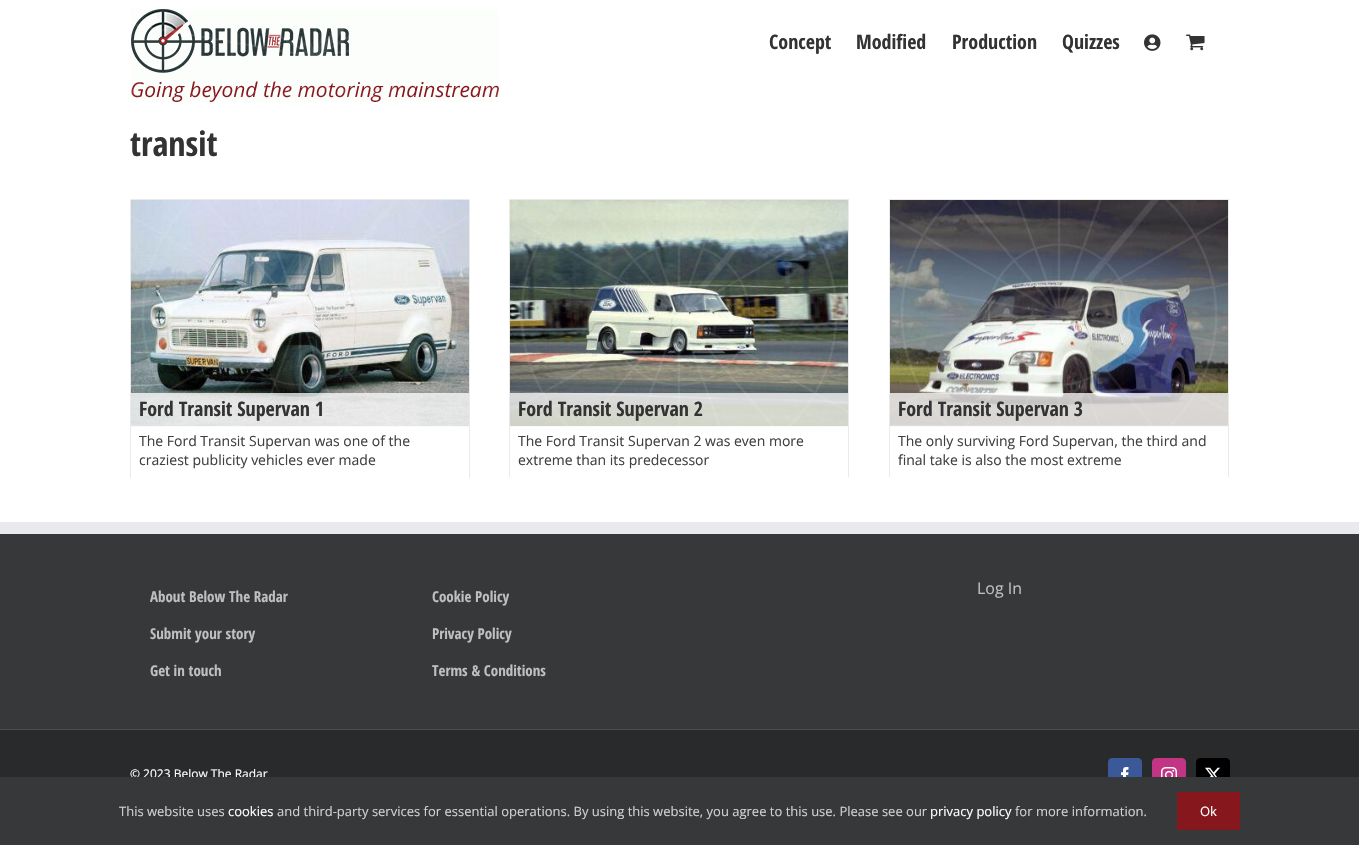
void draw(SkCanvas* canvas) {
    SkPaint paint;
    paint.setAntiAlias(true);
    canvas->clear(0xFFFFFFFF);
    canvas->drawImageRect(SkImages::DeferredFromEncodedData(SkData::MakeFromFileName("img1.png")), SkRect::MakeXYWH(131, 9, 368, 93), SkSamplingOptions());
    SkFont font1(fontMgr->matchFamilyStyle("Open Sans Condensed", SkFontStyle::Bold()), 20);
    font1.setSubpixel(true);
    paint.setColor(0xFF333333);
    canvas->drawString("Concept", 769, 49, font1, paint);
    canvas->drawString("Modified", 856, 49, font1, paint);
    canvas->drawString("Production", 952, 49, font1, paint);
    canvas->drawString("Quizzes", 1062, 49, font1, paint);
    canvas->drawImageRect(SkImages::DeferredFromEncodedData(SkData::MakeFromFileName("img2.png")), SkRect::MakeXYWH(1144, 34, 17, 17), SkSamplingOptions());
    canvas->drawImageRect(SkImages::DeferredFromEncodedData(SkData::MakeFromFileName("img3.png")), SkRect::MakeXYWH(1186, 34, 19, 17), SkSamplingOptions());
    SkFont font2(fontMgr->matchFamilyStyle("Open Sans Condensed", SkFontStyle::Bold()), 34);
    font2.setSubpixel(true);
    canvas->drawString("transit", 130, 156, font2, paint);
    paint.setColor(0xFFEBEAEA);
    canvas->drawRect(SkRect::MakeXYWH(130, 199, 340, 1), paint);
    canvas->drawRect(SkRect::MakeXYWH(469, 199, 1, 279), paint);
    canvas->drawRect(SkRect::MakeXYWH(130, 199, 1, 279), paint);
    canvas->drawRect(SkRect::MakeXYWH(131, 426, 338, 1), paint);
    canvas->drawImageRect(SkImages::DeferredFromEncodedData(SkData::MakeFromFileName("img4.png")), SkRect::MakeXYWH(131, 200, 338, 226), SkSamplingOptions());
    paint.setColor(0xBFFFFFFF);
    canvas->drawRect(SkRect::MakeXYWH(131, 393, 338, 34), paint);
    paint.setColor(0xFF333333);
    canvas->drawString("Ford Transit Supervan 1", 139, 416, font1, paint);
    SkFont font3(fontMgr->matchFamilyStyle("Open Sans", SkFontStyle::Normal()), 14);
    font3.setSubpixel(true);
    paint.setColor(0xFF404040);
    canvas->drawString("The Ford Transit Supervan was one of the", 139, 446, font3, paint);
    canvas->drawString("craziest publicity vehicles ever made", 139, 465, font3, paint);
    paint.setColor(0xFFEBEAEA);
    canvas->drawRect(SkRect::MakeXYWH(509, 199, 340, 1), paint);
    canvas->drawRect(SkRect::MakeXYWH(848, 199, 1, 278), paint);
    canvas->drawRect(SkRect::MakeXYWH(509, 199, 1, 278), paint);
    canvas->drawRect(SkRect::MakeXYWH(510, 426, 338, 1), paint);
    canvas->drawImageRect(SkImages::DeferredFromEncodedData(SkData::MakeFromFileName("img5.png")), SkRect::MakeXYWH(510, 200, 338, 226), SkSamplingOptions());
    paint.setColor(0xBFFFFFFF);
    canvas->drawRect(SkRect::MakeXYWH(510, 393, 338, 34), paint);
    paint.setColor(0xFF333333);
    canvas->drawString("Ford Transit Supervan 2", 518, 416, font1, paint);
    paint.setColor(0xFF404040);
    canvas->drawString("The Ford Transit Supervan 2 was even more", 518, 446, font3, paint);
    canvas->drawString("extreme than its predecessor", 518, 465, font3, paint);
    paint.setColor(0xFFEBEAEA);
    canvas->drawRect(SkRect::MakeXYWH(889, 199, 340, 1), paint);
    canvas->drawRect(SkRect::MakeXYWH(1228, 199, 1, 278), paint);
    canvas->drawRect(SkRect::MakeXYWH(889, 199, 1, 278), paint);
    canvas->drawRect(SkRect::MakeXYWH(890, 426, 338, 1), paint);
    canvas->drawImageRect(SkImages::DeferredFromEncodedData(SkData::MakeFromFileName("img6.png")), SkRect::MakeXYWH(890, 200, 338, 226), SkSamplingOptions());
    paint.setColor(0xBFFFFFFF);
    canvas->drawRect(SkRect::MakeXYWH(890, 393, 338, 34), paint);
    paint.setColor(0xFF333333);
    canvas->drawString("Ford Transit Supervan 3", 898, 416, font1, paint);
    paint.setColor(0xFF404040);
    canvas->drawString("The only surviving Ford Supervan, the third and", 898, 446, font3, paint);
    canvas->drawString("final take is also the most extreme", 898, 465, font3, paint);
    paint.setColor(0xFF363839);
    canvas->drawRect(SkRect::MakeXYWH(0, 534, 1359, 195), paint);
    paint.setColor(0xFFE9EAEE);
    canvas->drawRect(SkRect::MakeXYWH(0, 522, 1359, 12), paint);
    SkFont font4(fontMgr->matchFamilyStyle("Open Sans Condensed", SkFontStyle::Bold()), 15);
    font4.setSubpixel(true);
    paint.setColor(0xFFBFBFBF);
    canvas->drawString("About Below The Radar", 150, 602, font4, paint);
    canvas->drawString("Submit your story", 150, 639, font4, paint);
    canvas->drawString("Get in touch", 150, 676, font4, paint);
    canvas->drawString("Cookie Policy", 432, 602, font4, paint);
    canvas->drawString("Privacy Policy", 432, 639, font4, paint);
    canvas->drawString("Terms & Conditions", 432, 676, font4, paint);
    SkFont font5(fontMgr->matchFamilyStyle("Open Sans", SkFontStyle::Normal()), 16);
    font5.setSubpixel(true);
    canvas->drawString("Log In", 977, 594, font5, paint);
    paint.setColor(0xFF282A2B);
    canvas->drawRect(SkRect::MakeXYWH(0, 730, 1359, 47), paint);
    paint.setColor(0xFF4B4C4D);
    canvas->drawRect(SkRect::MakeXYWH(0, 729, 1359, 1), paint);
    SkFont font6(fontMgr->matchFamilyStyle("Open Sans", SkFontStyle::Normal()), 12);
    font6.setSubpixel(true);
    paint.setColor(0xFFFFFFFF);
    canvas->drawString("© 2023 Below The Radar", 130, 778, font6, paint);
    paint.setColor(0xFF3B5998);
    canvas->drawRoundRect(SkRect::MakeXYWH(1108.5f, 758.5f, 33, 33), 3.5f, 3.5f, paint);
    paint.setStyle(SkPaint::kStroke_Style);
    paint.setStrokeWidth(1);
    canvas->drawRoundRect(SkRect::MakeXYWH(1108.5f, 758.5f, 33, 33), 3.5f, 3.5f, paint);
    canvas->drawImageRect(SkImages::DeferredFromEncodedData(SkData::MakeFromFileName("img7.png")), SkRect::MakeXYWH(1121, 767, 8, 10), SkSamplingOptions());
    paint.setStyle(SkPaint::kFill_Style);
    paint.setColor(0xFFC13584);
    canvas->drawRoundRect(SkRect::MakeXYWH(1152.5f, 758.5f, 33, 33), 3.5f, 3.5f, paint);
    paint.setStyle(SkPaint::kStroke_Style);
    canvas->drawRoundRect(SkRect::MakeXYWH(1152.5f, 758.5f, 33, 33), 3.5f, 3.5f, paint);
    canvas->drawImageRect(SkImages::DeferredFromEncodedData(SkData::MakeFromFileName("img8.png")), SkRect::MakeXYWH(1161, 767, 16, 10), SkSamplingOptions());
    paint.setStyle(SkPaint::kFill_Style);
    paint.setColor(0xFF000000);
    canvas->drawRoundRect(SkRect::MakeXYWH(1196.5f, 758.5f, 33, 33), 3.5f, 3.5f, paint);
    paint.setStyle(SkPaint::kStroke_Style);
    canvas->drawRoundRect(SkRect::MakeXYWH(1196.5f, 758.5f, 33, 33), 3.5f, 3.5f, paint);
    canvas->drawImageRect(SkImages::DeferredFromEncodedData(SkData::MakeFromFileName("img9.png")), SkRect::MakeXYWH(1205, 767, 15, 10), SkSamplingOptions());
    paint.setStyle(SkPaint::kFill_Style);
    paint.setColor(0xFF363839);
    canvas->drawRect(SkRect::MakeXYWH(0, 777, 1359, 68), paint);
    SkFont font7(fontMgr->matchFamilyStyle("Open Sans", SkFontStyle::Normal()), 13);
    font7.setSubpixel(true);
    paint.setColor(0xFFD0D0D0);
    canvas->drawString("This website uses", 119, 816, font7, paint);
    paint.setColor(0xFFFFFFFF);
    canvas->drawString("cookies", 228, 816, font7, paint);
    paint.setColor(0xFFD0D0D0);
    canvas->drawString("and third-party services for essential operations. By using this website, you agree to this use. Please see our", 277, 816, font7, paint);
    paint.setColor(0xFFFFFFFF);
    canvas->drawString("privacy policy", 930, 816, font7, paint);
    paint.setColor(0xFFD0D0D0);
    canvas->drawString("for more information.", 1015, 816, font7, paint);
    paint.setColor(0xFF86181D);
    canvas->drawRect(SkRect::MakeXYWH(1177, 792, 63, 38), paint);
    paint.setColor(0xFFFFFFFF);
    canvas->drawString("Ok", 1200, 816, font7, paint);
}
